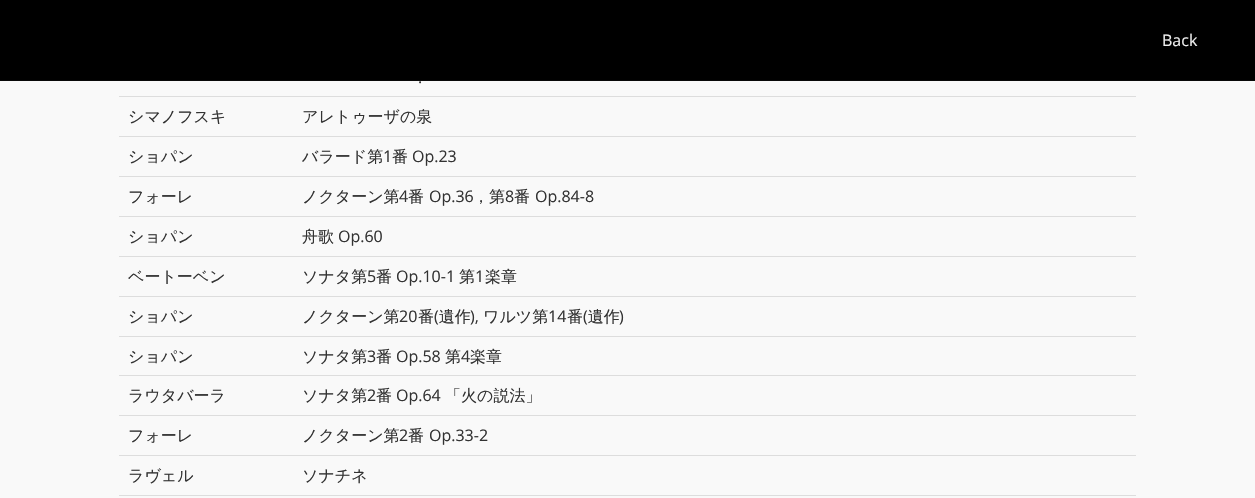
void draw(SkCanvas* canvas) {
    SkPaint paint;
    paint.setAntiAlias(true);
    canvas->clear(0xFFF9F9F9);
    paint.setColor(0xFF000000);
    canvas->drawRect(SkRect::MakeXYWH(0, 0, 1255, 80), paint);
    paint.setColor(0xFF090909);
    canvas->drawRect(SkRect::MakeXYWH(0, 80, 1255, 1), paint);
    SkFont font1(fontMgr->matchFamilyStyle("Open Sans", SkFontStyle::Normal()), 16);
    font1.setSubpixel(true);
    paint.setColor(0xFFEEEEEE);
    canvas->drawString("Back", 1162, 46, font1, paint);
    paint.setColor(0xFF333333);
    canvas->drawString(".", 418, 83, font1, paint);
    SkFont font2(fontMgr->matchFamilyStyle("WenQuanYi Zen Hei", SkFontStyle(500, SkFontStyle::kNormal_Width, SkFontStyle::kUpright_Slant)), 16);
    font2.setSubpixel(true);
    canvas->drawString("シマノフスキ", 128, 122, font2, paint);
    paint.setColor(0xFFDDDDDD);
    canvas->drawRect(SkRect::MakeXYWH(119, 96, 1017, 1), paint);
    paint.setColor(0xFF333333);
    canvas->drawString("アレトゥーザの泉", 302, 122, font2, paint);
    canvas->drawString("ショパン", 128, 162, font2, paint);
    paint.setColor(0xFFDDDDDD);
    canvas->drawRect(SkRect::MakeXYWH(119, 136, 1017, 1), paint);
    paint.setColor(0xFF333333);
    canvas->drawString("バラード第", 302, 162, font2, paint);
    canvas->drawString("1", 383, 162, font1, paint);
    canvas->drawString("番", 392, 162, font2, paint);
    canvas->drawString("Op.23", 412, 162, font1, paint);
    canvas->drawString("フォーレ", 128, 202, font2, paint);
    paint.setColor(0xFFDDDDDD);
    canvas->drawRect(SkRect::MakeXYWH(119, 176, 1017, 1), paint);
    paint.setColor(0xFF333333);
    canvas->drawString("ノクターン第", 302, 202, font2, paint);
    canvas->drawString("4", 399, 202, font1, paint);
    canvas->drawString("番", 408, 202, font2, paint);
    canvas->drawString("Op.36", 429, 202, font1, paint);
    canvas->drawString("，第", 473, 202, font2, paint);
    canvas->drawString("8", 505, 202, font1, paint);
    canvas->drawString("番", 514, 202, font2, paint);
    canvas->drawString("Op.84-8", 535, 202, font1, paint);
    canvas->drawString("ショパン", 128, 242, font2, paint);
    paint.setColor(0xFFDDDDDD);
    canvas->drawRect(SkRect::MakeXYWH(119, 216, 1017, 1), paint);
    paint.setColor(0xFF333333);
    canvas->drawString("舟歌", 302, 242, font2, paint);
    canvas->drawString("Op.60", 338, 242, font1, paint);
    canvas->drawString("ベートーベン", 128, 282, font2, paint);
    paint.setColor(0xFFDDDDDD);
    canvas->drawRect(SkRect::MakeXYWH(119, 256, 1017, 1), paint);
    paint.setColor(0xFF333333);
    canvas->drawString("ソナタ第", 302, 282, font2, paint);
    canvas->drawString("5", 367, 282, font1, paint);
    canvas->drawString("番", 376, 282, font2, paint);
    canvas->drawString("Op.10-1", 396, 282, font1, paint);
    canvas->drawString("第", 459, 282, font2, paint);
    canvas->drawString("1", 475, 282, font1, paint);
    canvas->drawString("楽章", 485, 282, font2, paint);
    canvas->drawString("ショパン", 128, 322, font2, paint);
    paint.setColor(0xFFDDDDDD);
    canvas->drawRect(SkRect::MakeXYWH(119, 296, 1017, 1), paint);
    paint.setColor(0xFF333333);
    canvas->drawString("ノクターン第", 302, 322, font2, paint);
    canvas->drawString("20", 399, 322, font1, paint);
    canvas->drawString("番 遺作", 418, 322, font2, paint);
    canvas->drawString("ワルツ第", 483, 322, font2, paint);
    canvas->drawString("番 遺作", 567, 322, font2, paint);
    canvas->drawString("(", 434, 322, font1, paint);
    canvas->drawString("),", 470, 322, font1, paint);
    canvas->drawString("14", 548, 322, font1, paint);
    canvas->drawString("(", 583, 322, font1, paint);
    canvas->drawString(")", 619, 322, font1, paint);
    canvas->drawString("ショパン", 128, 362, font2, paint);
    paint.setColor(0xFFDDDDDD);
    canvas->drawRect(SkRect::MakeXYWH(119, 336, 1017, 1), paint);
    paint.setColor(0xFF333333);
    canvas->drawString("ソナタ第", 302, 362, font2, paint);
    canvas->drawString("3", 367, 362, font1, paint);
    canvas->drawString("番", 376, 362, font2, paint);
    canvas->drawString("Op.58", 396, 362, font1, paint);
    canvas->drawString("第", 445, 362, font2, paint);
    canvas->drawString("4", 461, 362, font1, paint);
    canvas->drawString("楽章", 470, 362, font2, paint);
    canvas->drawString("ラウタバーラ", 128, 401, font2, paint);
    paint.setColor(0xFFDDDDDD);
    canvas->drawRect(SkRect::MakeXYWH(119, 375, 1017, 1), paint);
    paint.setColor(0xFF333333);
    canvas->drawString("ソナタ第", 302, 401, font2, paint);
    canvas->drawString("2", 367, 401, font1, paint);
    canvas->drawString("番", 376, 401, font2, paint);
    canvas->drawString("Op.64", 396, 401, font1, paint);
    canvas->drawString("「火の説法」", 445, 401, font2, paint);
    canvas->drawString("フォーレ", 128, 441, font2, paint);
    paint.setColor(0xFFDDDDDD);
    canvas->drawRect(SkRect::MakeXYWH(119, 415, 1017, 1), paint);
    paint.setColor(0xFF333333);
    canvas->drawString("ノクターン第", 302, 441, font2, paint);
    canvas->drawString("2", 399, 441, font1, paint);
    canvas->drawString("番", 408, 441, font2, paint);
    canvas->drawString("Op.33-2", 429, 441, font1, paint);
    canvas->drawString("ラヴェル", 128, 481, font2, paint);
    paint.setColor(0xFFDDDDDD);
    canvas->drawRect(SkRect::MakeXYWH(119, 455, 1017, 1), paint);
    paint.setColor(0xFF333333);
    canvas->drawString("ソナチネ", 302, 481, font2, paint);
    paint.setColor(0xFFDDDDDD);
    canvas->drawRect(SkRect::MakeXYWH(119, 495, 1017, 1), paint);
}
